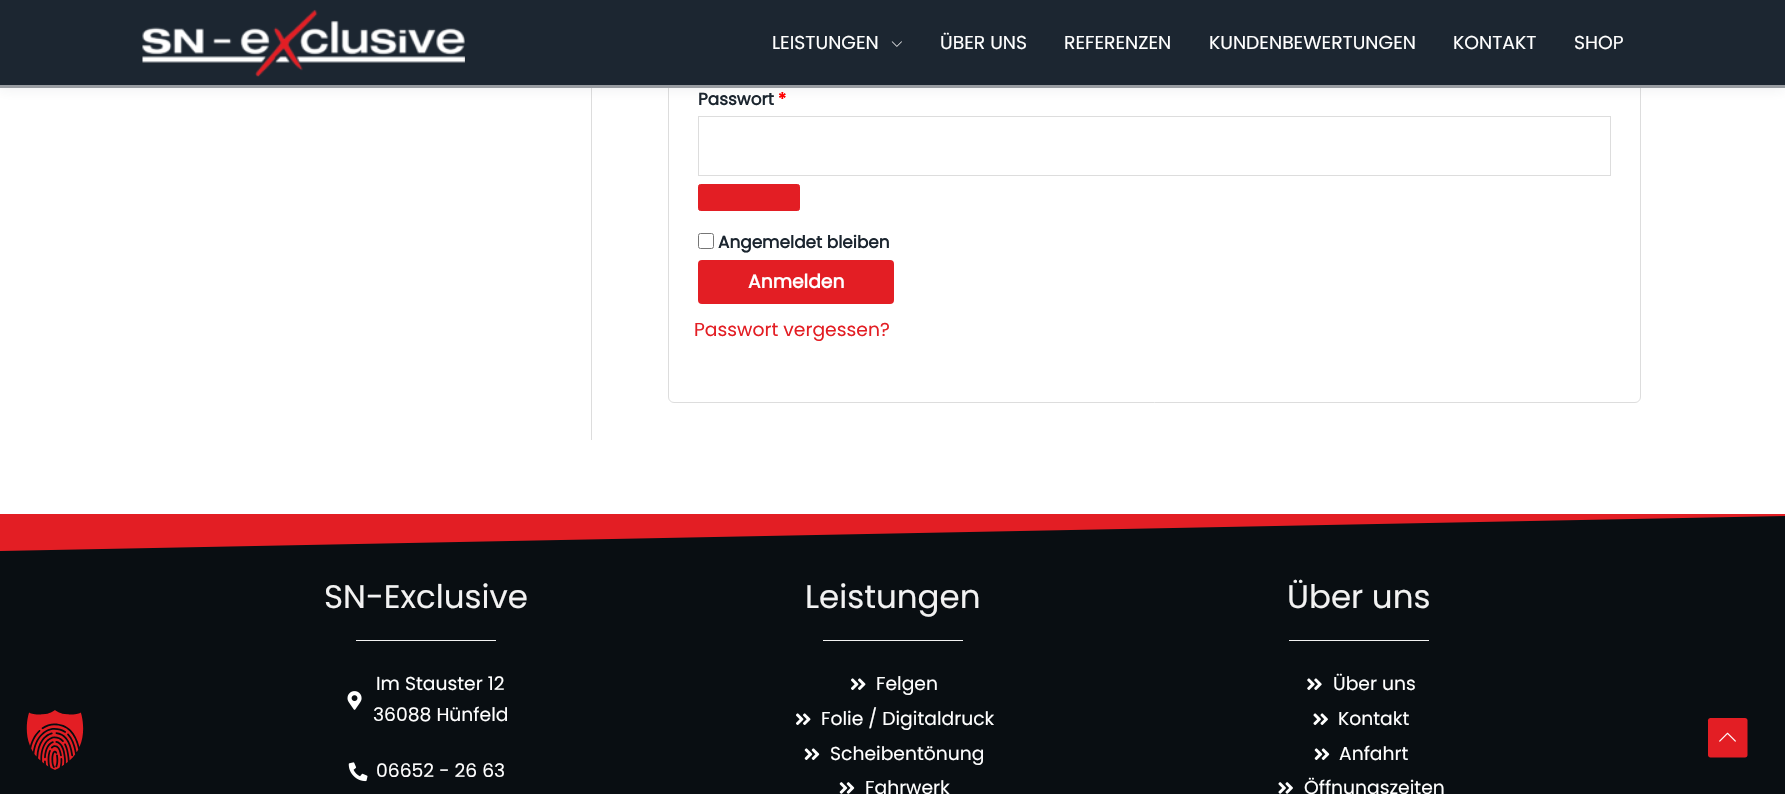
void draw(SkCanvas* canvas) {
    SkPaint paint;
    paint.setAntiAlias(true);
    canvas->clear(0xFFFFFFFF);
    paint.setColor(0xFF090E12);
    canvas->drawRect(SkRect::MakeXYWH(0, 516, 1785, 278), paint);
    canvas->drawImageRect(SkImages::DeferredFromEncodedData(SkData::MakeFromFileName("img1.png")), SkRect::MakeXYWH(26, 710, 58, 60), SkSamplingOptions());
    paint.setColor(0xFFDDDDDD);
    canvas->drawRect(SkRect::MakeXYWH(591, 88, 1, 352), paint);
    paint.setStyle(SkPaint::kStroke_Style);
    paint.setStrokeWidth(1);
    canvas->drawRoundRect(SkRect::MakeXYWH(668.5f, -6.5f, 972, 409), 5.5f, 5.5f, paint);
    paint.setStyle(SkPaint::kFill_Style);
    paint.setColor(0x12243242);
    paint.setMaskFilter(SkMaskFilter::MakeBlur(kNormal_SkBlurStyle, 6));
    canvas->drawRect(SkRect::MakeXYWH(0, 3, 1785, 87), paint);
    paint.setMaskFilter(nullptr);
    paint.setColor(0xFF1C2631);
    canvas->drawRect(SkRect::MakeXYWH(0, 0, 1785, 85), paint);
    paint.setColor(0xFF989CA1);
    canvas->drawRect(SkRect::MakeXYWH(0, 85, 1785, 3), paint);
    canvas->drawImageRect(SkImages::DeferredFromEncodedData(SkData::MakeFromFileName("img2.png")), SkRect::MakeXYWH(142, 9, 323, 68), SkSamplingOptions());
    SkFont font1(fontMgr->matchFamilyStyle("Poppins", SkFontStyle::Normal()), 18.75f);
    font1.setSubpixel(true);
    paint.setColor(0xFFFFFFFF);
    canvas->drawString("LEISTUNGEN", 772, 49, font1, paint);
    canvas->drawImageRect(SkImages::DeferredFromEncodedData(SkData::MakeFromFileName("img3.png")), SkRect::MakeXYWH(891, 41, 11, 6), SkSamplingOptions());
    canvas->drawString("ÜBER UNS", 940, 49, font1, paint);
    canvas->drawString("REFERENZEN", 1064, 49, font1, paint);
    canvas->drawString("KUNDENBEWERTUNGEN", 1209, 49, font1, paint);
    canvas->drawString("KONTAKT", 1453, 49, font1, paint);
    canvas->drawString("SHOP", 1574, 49, font1, paint);
    SkFont font2(fontMgr->matchFamilyStyle("Poppins", SkFontStyle::Bold()), 16.9f);
    font2.setSubpixel(true);
    paint.setColor(0xFF1B252F);
    canvas->drawString("Passwort", 698, 105, font2, paint);
    paint.setColor(0xFFFF0000);
    canvas->drawString("*", 778, 105, font2, paint);
    paint.setStyle(SkPaint::kStroke_Style);
    paint.setColor(0xFFDDDDDD);
    canvas->drawRect(SkRect::MakeXYWH(698.5f, 116.5f, 912, 59), paint);
    paint.setStyle(SkPaint::kFill_Style);
    paint.setColor(0xFFE31E24);
    canvas->drawRoundRect(SkRect::MakeXYWH(698.5f, 184.5f, 101, 26), 2, 2, paint);
    paint.setStyle(SkPaint::kStroke_Style);
    canvas->drawRoundRect(SkRect::MakeXYWH(698.5f, 184.5f, 101, 26), 2, 2, paint);
    paint.setColor(0xFF767676);
    canvas->drawRoundRect(SkRect::MakeXYWH(698.5f, 233.5f, 15, 15), 2, 2, paint);
    paint.setStyle(SkPaint::kFill_Style);
    paint.setColor(0xFF1B252F);
    canvas->drawString("Angemeldet bleiben", 718, 248, font2, paint);
    paint.setColor(0xFFE31E24);
    canvas->drawRoundRect(SkRect::MakeXYWH(698, 260, 196, 44), 4, 4, paint);
    SkFont font3(fontMgr->matchFamilyStyle("Poppins", SkFontStyle::Bold()), 18.75f);
    font3.setSubpixel(true);
    paint.setColor(0xFFFFFFFF);
    canvas->drawString("Anmelden", 748, 288, font3, paint);
    paint.setColor(0xFFE31E24);
    canvas->drawString("Passwort vergessen?", 694, 336, font1, paint);
    canvas->drawPath(SkPathBuilder().moveTo(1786, 516).lineTo(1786, 514).lineTo(-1, 514).lineTo(-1, 551).close().detach(), paint);
    SkFont font4(fontMgr->matchFamilyStyle("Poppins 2", SkFontStyle::Normal()), 32.5f);
    font4.setSubpixel(true);
    paint.setColor(0xFFF2F2F2);
    canvas->drawString("SN-Exclusive", 324, 608, font4, paint);
    canvas->drawRect(SkRect::MakeXYWH(356, 640, 140, 1), paint);
    canvas->drawImageRect(SkImages::DeferredFromEncodedData(SkData::MakeFromFileName("img4.png")), SkRect::MakeXYWH(347, 691, 15, 19), SkSamplingOptions());
    SkFont font5(fontMgr->matchFamilyStyle("Poppins 2", SkFontStyle::Normal()), 18.75f);
    font5.setSubpixel(true);
    paint.setColor(0xFFFFFFFF);
    canvas->drawString("Im Stauster 12", 376, 690, font5, paint);
    canvas->drawString("36088 Hünfeld", 373, 721, font5, paint);
    canvas->drawImageRect(SkImages::DeferredFromEncodedData(SkData::MakeFromFileName("img5.png")), SkRect::MakeXYWH(348, 762, 20, 20), SkSamplingOptions());
    canvas->drawString("06652 - 26 63", 376, 777, font5, paint);
    paint.setColor(0xFFF2F2F2);
    canvas->drawString("Leistungen", 805, 608, font4, paint);
    canvas->drawRect(SkRect::MakeXYWH(823, 640, 140, 1), paint);
    canvas->drawImageRect(SkImages::DeferredFromEncodedData(SkData::MakeFromFileName("img6.png")), SkRect::MakeXYWH(851, 678, 15, 12), SkSamplingOptions());
    paint.setColor(0xFFFFFFFF);
    canvas->drawString("Felgen", 876, 690, font5, paint);
    canvas->drawImageRect(SkImages::DeferredFromEncodedData(SkData::MakeFromFileName("img6.png")), SkRect::MakeXYWH(796, 713, 15, 12), SkSamplingOptions());
    canvas->drawString("Folie / Digitaldruck", 821, 725, font5, paint);
    canvas->drawImageRect(SkImages::DeferredFromEncodedData(SkData::MakeFromFileName("img7.png")), SkRect::MakeXYWH(804, 748, 16, 12), SkSamplingOptions());
    canvas->drawString("Scheibentönung", 830, 760, font5, paint);
    canvas->drawImageRect(SkImages::DeferredFromEncodedData(SkData::MakeFromFileName("img8.png")), SkRect::MakeXYWH(839, 782, 16, 12), SkSamplingOptions());
    canvas->drawString("Fahrwerk", 865, 794, font5, paint);
    paint.setColor(0xFFF2F2F2);
    canvas->drawString("Über uns", 1287, 608, font4, paint);
    canvas->drawRect(SkRect::MakeXYWH(1289, 640, 140, 1), paint);
    canvas->drawImageRect(SkImages::DeferredFromEncodedData(SkData::MakeFromFileName("img9.png")), SkRect::MakeXYWH(1307, 678, 15, 12), SkSamplingOptions());
    paint.setColor(0xFFFFFFFF);
    canvas->drawString("Über uns", 1333, 690, font5, paint);
    canvas->drawImageRect(SkImages::DeferredFromEncodedData(SkData::MakeFromFileName("img10.png")), SkRect::MakeXYWH(1313, 713, 15, 12), SkSamplingOptions());
    canvas->drawString("Kontakt", 1338, 725, font5, paint);
    canvas->drawImageRect(SkImages::DeferredFromEncodedData(SkData::MakeFromFileName("img7.png")), SkRect::MakeXYWH(1314, 748, 16, 12), SkSamplingOptions());
    canvas->drawString("Anfahrt", 1339, 760, font5, paint);
    canvas->drawImageRect(SkImages::DeferredFromEncodedData(SkData::MakeFromFileName("img11.png")), SkRect::MakeXYWH(1278, 782, 15, 12), SkSamplingOptions());
    canvas->drawString("Öffnungszeiten", 1304, 794, font5, paint);
    paint.setColor(0xFFE31E24);
    canvas->drawPath(SkPathBuilder().moveTo(1745, 757.5f).lineTo(1710.5f, 757.5f).cubicTo(1709, 757.5f, 1708, 756.5f, 1708, 755).lineTo(1708, 720.5f).cubicTo(1708, 719, 1709, 718, 1710.5f, 718).lineTo(1745, 718).cubicTo(1746.5f, 718, 1747.5f, 719, 1747.5f, 720.5f).lineTo(1747.5f, 755).cubicTo(1747.5f, 756.5f, 1746.5f, 757.5f, 1745, 757.5f).close().detach(), paint);
    canvas->drawImageRect(SkImages::DeferredFromEncodedData(SkData::MakeFromFileName("img12.png")), SkRect::MakeXYWH(1719, 732, 17, 10), SkSamplingOptions());
}
